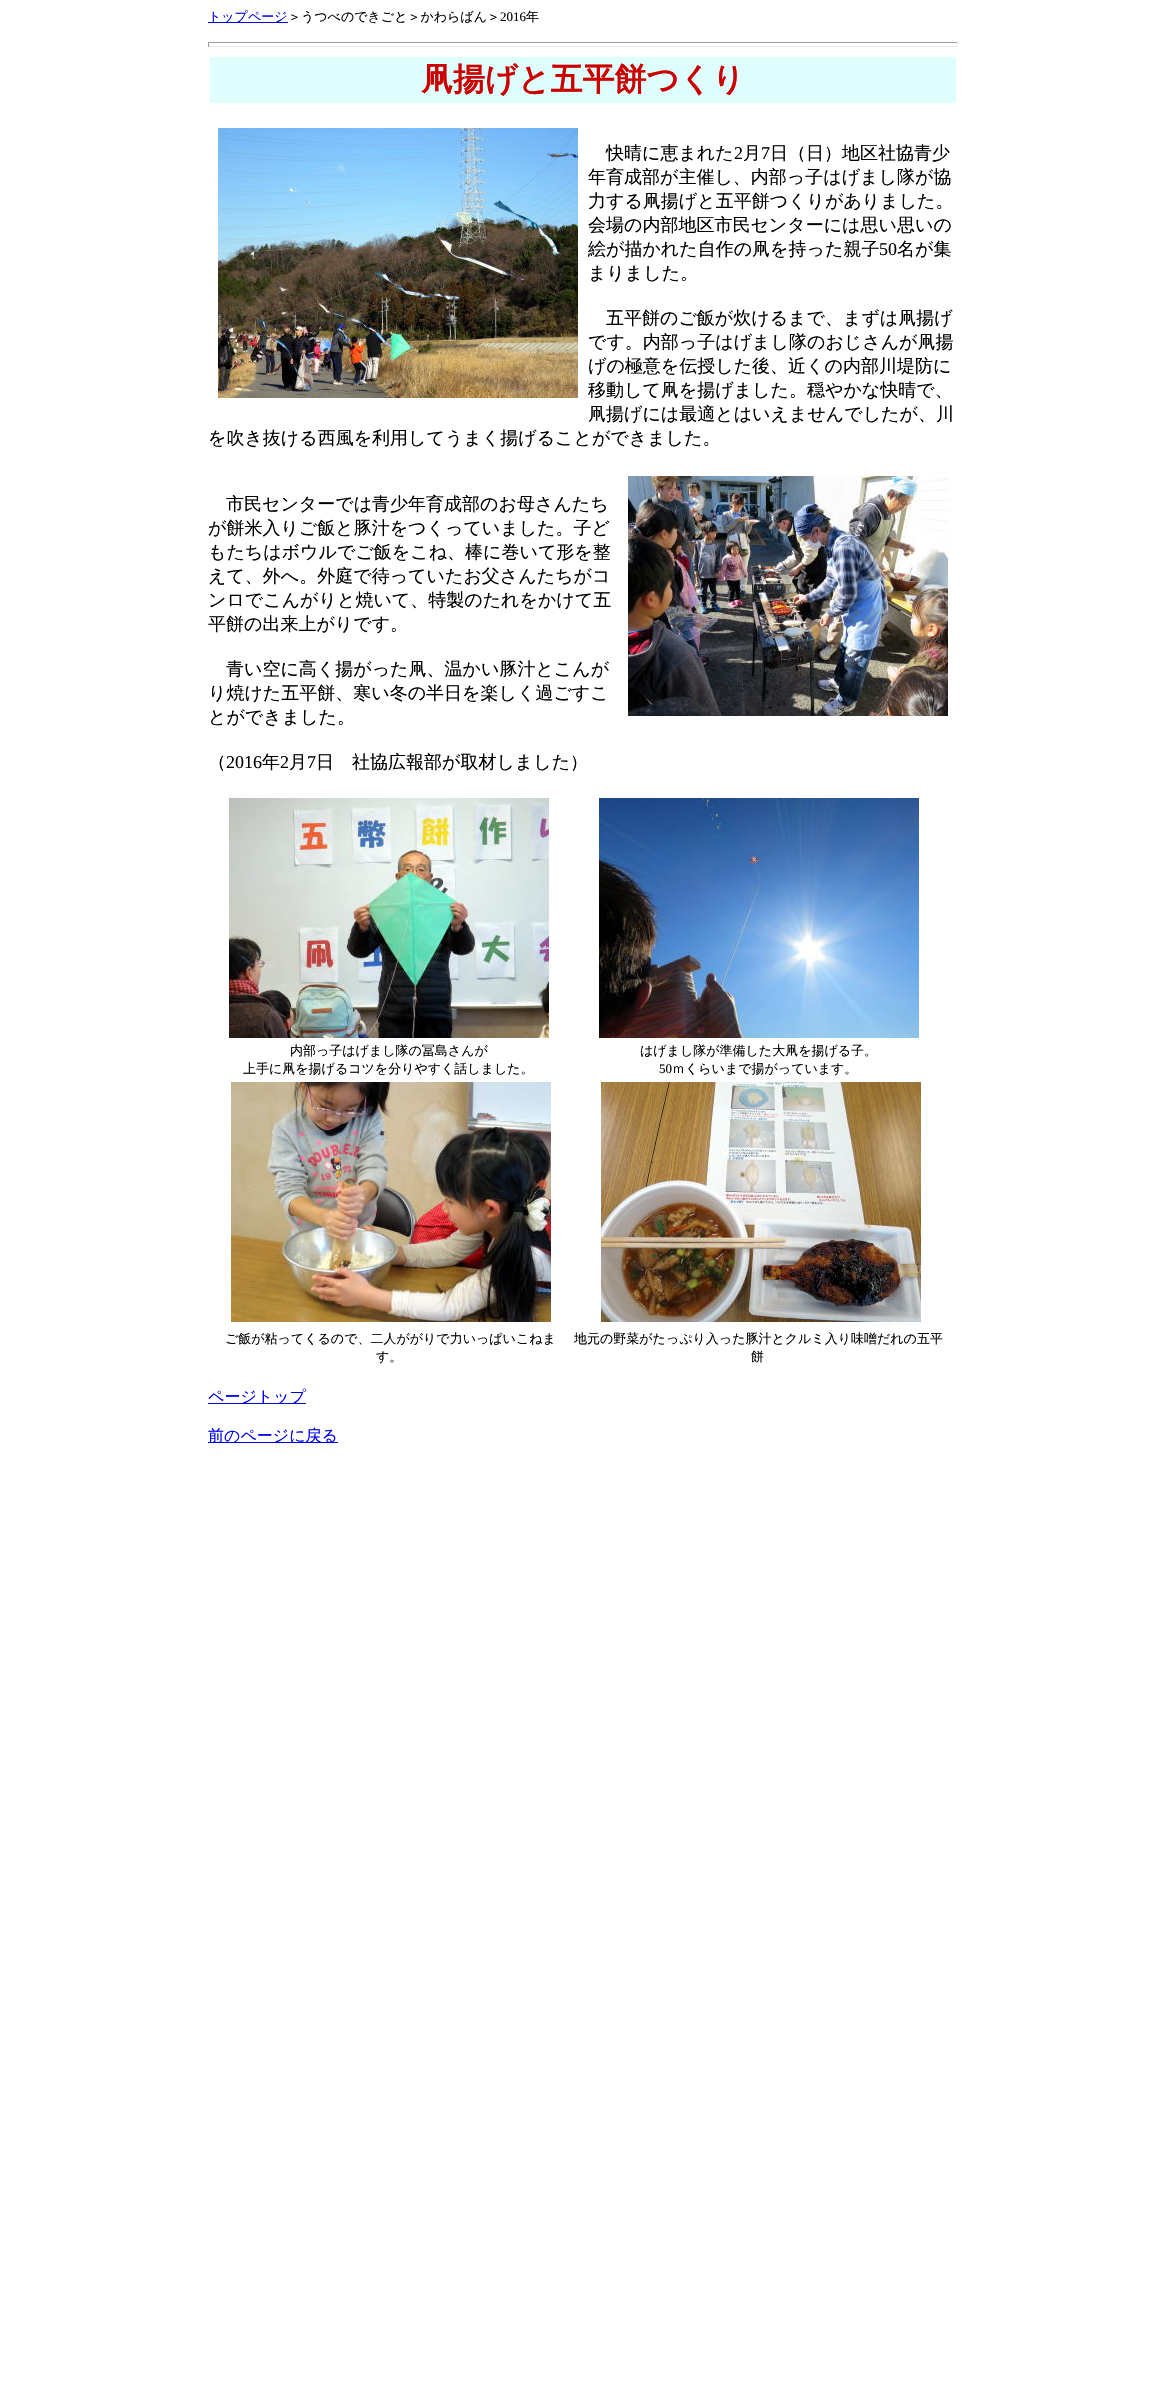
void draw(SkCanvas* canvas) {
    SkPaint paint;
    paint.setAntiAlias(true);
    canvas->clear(0xFFFFFFFF);
    paint.setColor(0xFF0000EE);
    canvas->drawRect(SkRect::MakeXYWH(208, 22, 80, 1), paint);
    SkFont font1(fontMgr->matchFamilyStyle("WenQuanYi Zen Hei", SkFontStyle(500, SkFontStyle::kNormal_Width, SkFontStyle::kUpright_Slant)), 13);
    font1.setSubpixel(true);
    canvas->drawString("トップページ", 208, 21, font1, paint);
    paint.setColor(0xFF000000);
    canvas->drawString("＞うつべのできごと＞かわらばん＞", 288, 21, font1, paint);
    SkFont font2(fontMgr->matchFamilyStyle("Liberation Serif", SkFontStyle::Normal()), 13);
    font2.setSubpixel(true);
    canvas->drawString("2016", 500, 21, font2, paint);
    canvas->drawString("年", 526, 21, font1, paint);
    paint.setColor(0xFF9F9F9F);
    canvas->drawRect(SkRect::MakeXYWH(208, 42, 750, 1), paint);
    paint.setColor(0xFFEEEEEE);
    canvas->drawRect(SkRect::MakeXYWH(957, 42, 1, 5), paint);
    canvas->drawRect(SkRect::MakeXYWH(208, 46, 750, 1), paint);
    paint.setColor(0xFF9F9F9F);
    canvas->drawRect(SkRect::MakeXYWH(208, 42, 1, 5), paint);
    paint.setColor(0xFFDFFFFF);
    canvas->drawRect(SkRect::MakeXYWH(210, 57, 746, 46), paint);
    SkFont font3(fontMgr->matchFamilyStyle("WenQuanYi Zen Hei", SkFontStyle::Bold()), 32);
    font3.setSubpixel(true);
    paint.setColor(0xFFCC0000);
    canvas->drawString("凧揚げと五平餅つくり", 421, 90, font3, paint);
    canvas->drawImageRect(SkImages::DeferredFromEncodedData(SkData::MakeFromFileName("img1.png")), SkRect::MakeXYWH(218, 128, 360, 270), SkSamplingOptions());
    SkFont font4(fontMgr->matchFamilyStyle("WenQuanYi Zen Hei", SkFontStyle(500, SkFontStyle::kNormal_Width, SkFontStyle::kUpright_Slant)), 18);
    font4.setSubpixel(true);
    paint.setColor(0xFF000000);
    canvas->drawString("快晴に恵まれた", 606, 159, font4, paint);
    SkFont font5(fontMgr->matchFamilyStyle("Liberation Serif", SkFontStyle::Normal()), 18);
    font5.setSubpixel(true);
    canvas->drawString("2", 734, 159, font5, paint);
    canvas->drawString("月", 743, 159, font4, paint);
    canvas->drawString("7", 761, 159, font5, paint);
    canvas->drawString("日（日）地区社協青少", 770, 159, font4, paint);
    canvas->drawString("年育成部が主催し、内部っ子はげまし隊が協", 588, 183, font4, paint);
    canvas->drawString("力する凧揚げと五平餅つくりがありました。", 588, 207, font4, paint);
    canvas->drawString("会場の内部地区市民センターには思い思いの", 588, 231, font4, paint);
    canvas->drawString("絵が描かれた自作の凧を持った親子", 588, 255, font4, paint);
    canvas->drawString("50", 879, 255, font5, paint);
    canvas->drawString("名が集", 897, 255, font4, paint);
    canvas->drawString("まりました。", 588, 279, font4, paint);
    canvas->drawString("五平餅のご飯が炊けるまで、まずは凧揚げ", 606, 324, font4, paint);
    canvas->drawString("です。内部っ子はげまし隊のおじさんが凧揚", 588, 348, font4, paint);
    canvas->drawString("げの極意を伝授した後、近くの内部川堤防に", 588, 372, font4, paint);
    canvas->drawString("移動して凧を揚げました。穏やかな快晴で、", 588, 396, font4, paint);
    canvas->drawString("凧揚げには最適とはいえませんでしたが、川", 588, 420, font4, paint);
    canvas->drawString("を吹き抜ける西風を利用してうまく揚げることができました。", 208, 444, font4, paint);
    canvas->drawString("市民センターでは青少年育成部のお母さんたち", 226, 510, font4, paint);
    canvas->drawImageRect(SkImages::DeferredFromEncodedData(SkData::MakeFromFileName("img2.png")), SkRect::MakeXYWH(628, 476, 320, 240), SkSamplingOptions());
    canvas->drawString("が餅米入りご飯と豚汁をつくっていました。子ど", 208, 534, font4, paint);
    canvas->drawString("もたちはボウルでご飯をこね、棒に巻いて形を整", 208, 558, font4, paint);
    canvas->drawString("えて、外へ。外庭で待っていたお父さんたちがコ", 208, 582, font4, paint);
    canvas->drawString("ンロでこんがりと焼いて、特製のたれをかけて五", 208, 606, font4, paint);
    canvas->drawString("平餅の出来上がりです。", 208, 630, font4, paint);
    canvas->drawString("青い空に高く揚がった凧、温かい豚汁とこんが", 226, 675, font4, paint);
    canvas->drawString("り焼けた五平餅、寒い冬の半日を楽しく過ごすこ", 208, 699, font4, paint);
    canvas->drawString("とができました。", 208, 723, font4, paint);
    canvas->drawString("（", 208, 768, font4, paint);
    canvas->drawString("2016", 226, 768, font5, paint);
    canvas->drawString("年", 262, 768, font4, paint);
    canvas->drawString("2", 280, 768, font5, paint);
    canvas->drawString("月", 289, 768, font4, paint);
    canvas->drawString("7", 307, 768, font5, paint);
    canvas->drawString("日　社協広報部が取材しました）", 316, 768, font4, paint);
    canvas->drawImageRect(SkImages::DeferredFromEncodedData(SkData::MakeFromFileName("img3.png")), SkRect::MakeXYWH(229, 798, 320, 240), SkSamplingOptions());
    canvas->drawImageRect(SkImages::DeferredFromEncodedData(SkData::MakeFromFileName("img4.png")), SkRect::MakeXYWH(599, 798, 320, 240), SkSamplingOptions());
    canvas->drawString("内部っ子はげまし隊の冨島さんが", 290, 1055, font1, paint);
    canvas->drawString("上手に凧を揚げるコツを分りやすく話しました。", 243, 1073, font1, paint);
    canvas->drawString("はげまし隊が準備した大凧を揚げる子。", 640, 1055, font1, paint);
    canvas->drawString("50", 659, 1073, font2, paint);
    canvas->drawString("ｍくらいまで揚がっています。", 672, 1073, font1, paint);
    canvas->drawImageRect(SkImages::DeferredFromEncodedData(SkData::MakeFromFileName("img5.png")), SkRect::MakeXYWH(231, 1082, 320, 240), SkSamplingOptions());
    canvas->drawImageRect(SkImages::DeferredFromEncodedData(SkData::MakeFromFileName("img6.png")), SkRect::MakeXYWH(601, 1082, 320, 240), SkSamplingOptions());
    canvas->drawString("ご飯が粘ってくるので、二人ががりで力いっぱいこねま", 225, 1343, font1, paint);
    canvas->drawString("す。", 376, 1361, font1, paint);
    canvas->drawString("地元の野菜がたっぷり入った豚汁とクルミ入り味噌だれの五平", 574, 1343, font1, paint);
    canvas->drawString("餅", 751, 1361, font1, paint);
    paint.setColor(0xFF0000EE);
    canvas->drawRect(SkRect::MakeXYWH(208, 1403, 98, 1), paint);
    SkFont font6(fontMgr->matchFamilyStyle("WenQuanYi Zen Hei", SkFontStyle(500, SkFontStyle::kNormal_Width, SkFontStyle::kUpright_Slant)), 16);
    font6.setSubpixel(true);
    canvas->drawString("ページトップ", 208, 1402, font6, paint);
    canvas->drawRect(SkRect::MakeXYWH(208, 1442, 130, 1), paint);
    canvas->drawString("前のページに戻る", 208, 1441, font6, paint);
}
